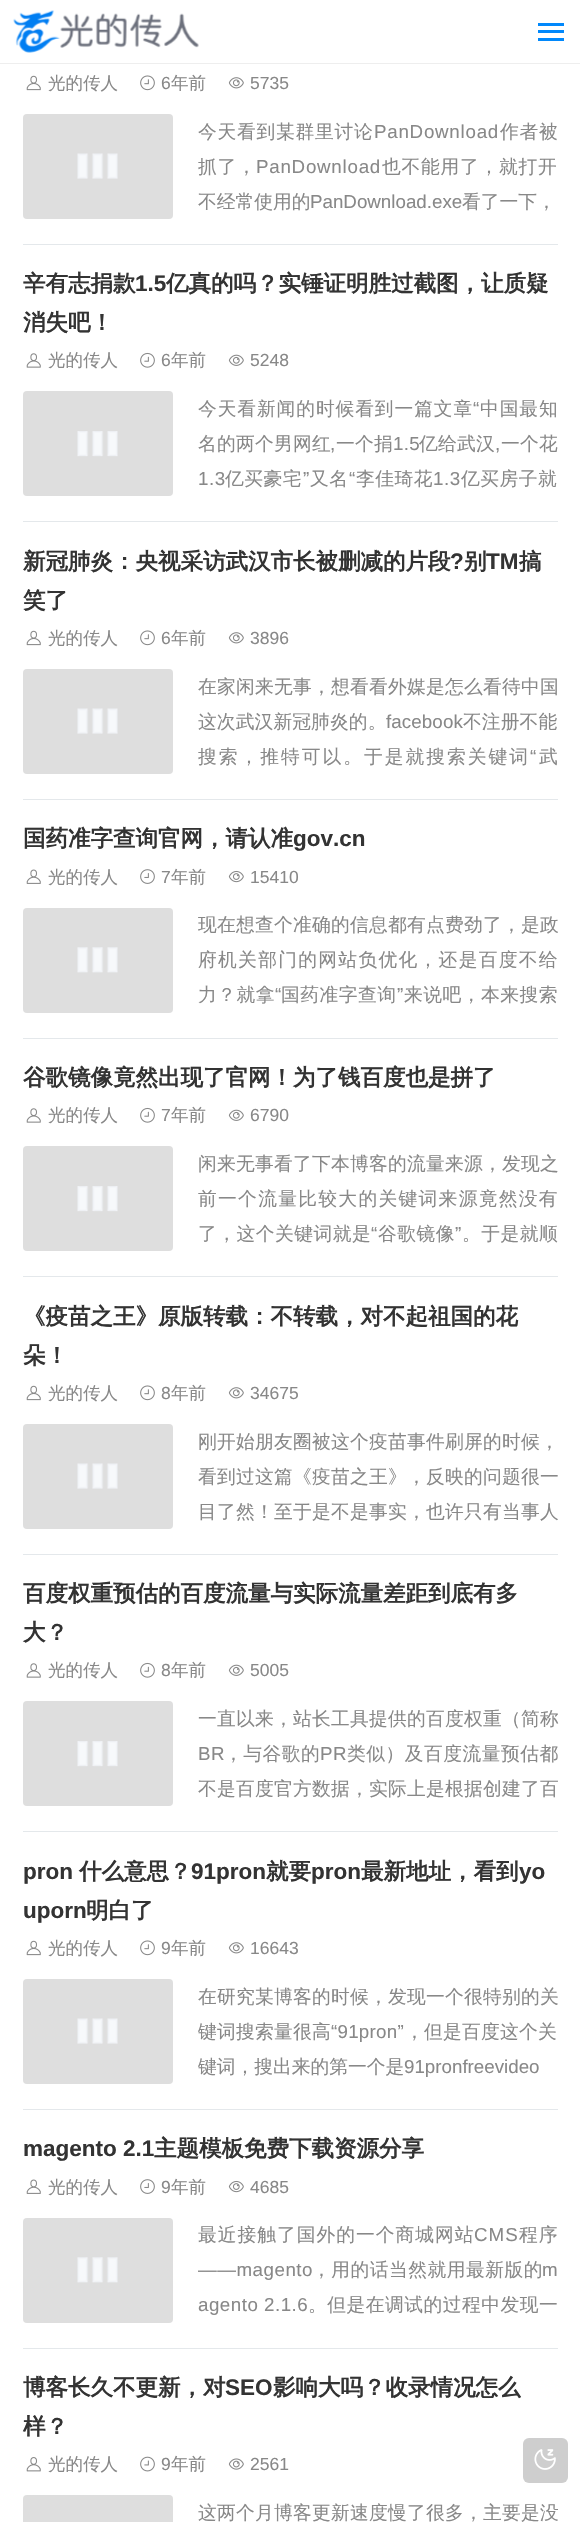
void draw(SkCanvas* canvas) {
    SkPaint paint;
    paint.setAntiAlias(true);
    auto spacedText = [&](const char* s, float x, float y, const SkFont& font, const SkPaint& ink, float letter, float word) {
        std::vector<SkGlyphID> glyphs(font.countText(s, strlen(s), SkTextEncoding::kUTF8));
        std::vector<float> xs(glyphs.size());
        font.textToGlyphs(s, strlen(s), SkTextEncoding::kUTF8, glyphs);
        font.getXPos(glyphs, xs, x);
        float extra = 0;
        for (size_t i = 0; i < glyphs.size(); i++) {
            xs[i] += extra;
            extra += letter + word * (glyphs[i] == font.unicharToGlyph(' '));
        }
        canvas->drawTextBlob(SkTextBlob::MakeFromPosHGlyphs(glyphs, xs, y, font), 0, 0, ink);
    };
    canvas->clear(0xFFFFFFFF);
    paint.setColor(0xFFEEEEEE);
    canvas->drawRect(SkRect::MakeXYWH(0, 63, 580, 1), paint);
    canvas->drawImageRect(SkImages::DeferredFromEncodedData(SkData::MakeFromFileName("img1.png")), SkRect::MakeXYWH(13, 10, 186, 43), SkSamplingOptions());
    paint.setColor(0xFF0188FB);
    canvas->drawRect(SkRect::MakeXYWH(538, 23, 26, 3), paint);
    canvas->drawRect(SkRect::MakeXYWH(538, 30, 26, 3), paint);
    canvas->drawRect(SkRect::MakeXYWH(538, 38, 26, 3), paint);
    paint.setColor(0xFFE4E8EB);
    canvas->drawRect(SkRect::MakeXYWH(23, 244, 535, 1), paint);
    canvas->drawImageRect(SkImages::DeferredFromEncodedData(SkData::MakeFromFileName("img2.png")), SkRect::MakeXYWH(26, 75, 15, 16), SkSamplingOptions());
    SkFont font1(fontMgr->matchFamilyStyle("WenQuanYi Zen Hei", SkFontStyle(500, SkFontStyle::kNormal_Width, SkFontStyle::kUpright_Slant)), 17.5f);
    font1.setSubpixel(true);
    paint.setColor(0xFF888888);
    canvas->drawString("光的传人", 48, 89, font1, paint);
    canvas->drawImageRect(SkImages::DeferredFromEncodedData(SkData::MakeFromFileName("img3.png")), SkRect::MakeXYWH(140, 75, 15, 16), SkSamplingOptions());
    SkFont font2(fontMgr->matchFamilyStyle("Liberation Sans", SkFontStyle::Normal()), 17.5f);
    font2.setSubpixel(true);
    canvas->drawString("6", 161, 89, font2, paint);
    canvas->drawString("年前", 171, 89, font1, paint);
    canvas->drawImageRect(SkImages::DeferredFromEncodedData(SkData::MakeFromFileName("img4.png")), SkRect::MakeXYWH(228, 77, 16, 12), SkSamplingOptions());
    canvas->drawString("5735", 250, 89, font2, paint);
    paint.setColor(0xFFDEDEDE);
    canvas->drawRoundRect(SkRect::MakeXYWH(23, 114, 150, 105), 4, 4, paint);
    canvas->drawImageRect(SkImages::DeferredFromEncodedData(SkData::MakeFromFileName("img5.png")), SkRect::MakeXYWH(77, 153, 41, 26), SkSamplingOptions());
    SkFont font3(fontMgr->matchFamilyStyle("WenQuanYi Zen Hei", SkFontStyle(500, SkFontStyle::kNormal_Width, SkFontStyle::kUpright_Slant)), 18.75f);
    font3.setSubpixel(true);
    paint.setColor(0xFF888888);
    spacedText("今天看到某群里讨论", 198, 138, font3, paint, 0.75f, 0);
    SkFont font4(fontMgr->matchFamilyStyle("Liberation Sans", SkFontStyle::Normal()), 18.75f);
    font4.setSubpixel(true);
    spacedText("PanDownload", 374, 138, font4, paint, 0.75f, 0);
    spacedText("作者被", 500, 138, font3, paint, 0.75f, 0);
    canvas->save();
    canvas->clipRect(SkRect::MakeXYWH(198, 114, 360, 105));
    spacedText("抓了，", 198, 173, font3, paint, 0.75f, 0);
    canvas->restore();
    spacedText("PanDownload", 256, 173, font4, paint, 0.75f, 0);
    spacedText("也不能用了，就打开", 382, 173, font3, paint, 0.75f, 0);
    canvas->drawString("不经常使用的", 198, 208, font3, paint);
    canvas->drawString("PanDownload.exe", 310, 208, font4, paint);
    canvas->drawString("看了一下，", 462, 208, font3, paint);
    paint.setColor(0xFFE4E8EB);
    canvas->drawRect(SkRect::MakeXYWH(23, 521, 535, 1), paint);
    SkFont font5(fontMgr->matchFamilyStyle("WenQuanYi Zen Hei", SkFontStyle::Bold()), 22.5f);
    font5.setSubpixel(true);
    paint.setColor(0xFF333333);
    canvas->drawString("辛有志捐款", 23, 291, font5, paint);
    SkFont font6(fontMgr->matchFamilyStyle("Liberation Sans", SkFontStyle::Bold()), 22.5f);
    font6.setSubpixel(true);
    canvas->drawString("1.5", 135, 291, font6, paint);
    canvas->drawString("亿真的吗？实锤证明胜过截图，让质疑", 166, 291, font5, paint);
    canvas->drawString("消失吧！", 23, 330, font5, paint);
    canvas->drawImageRect(SkImages::DeferredFromEncodedData(SkData::MakeFromFileName("img6.png")), SkRect::MakeXYWH(26, 353, 15, 15), SkSamplingOptions());
    paint.setColor(0xFF888888);
    canvas->drawString("光的传人", 48, 366, font1, paint);
    canvas->drawImageRect(SkImages::DeferredFromEncodedData(SkData::MakeFromFileName("img7.png")), SkRect::MakeXYWH(140, 352, 15, 16), SkSamplingOptions());
    canvas->drawString("6", 161, 366, font2, paint);
    canvas->drawString("年前", 171, 366, font1, paint);
    canvas->drawImageRect(SkImages::DeferredFromEncodedData(SkData::MakeFromFileName("img8.png")), SkRect::MakeXYWH(228, 354, 16, 12), SkSamplingOptions());
    canvas->drawString("5248", 250, 366, font2, paint);
    paint.setColor(0xFFDEDEDE);
    canvas->drawRoundRect(SkRect::MakeXYWH(23, 391, 150, 105), 4, 4, paint);
    canvas->drawImageRect(SkImages::DeferredFromEncodedData(SkData::MakeFromFileName("img9.png")), SkRect::MakeXYWH(77, 431, 41, 26), SkSamplingOptions());
    paint.setColor(0xFF888888);
    spacedText("今天看新闻的时候看到一篇文章", 198, 415, font3, paint, 0.9f, 0);
    spacedText("“", 473, 415, font4, paint, 0.9f, 0);
    spacedText("中国最知", 480, 415, font3, paint, 0.9f, 0);
    spacedText("名的两个男网红", 198, 450, font3, paint, 0.25f, 0);
    spacedText(",", 330, 450, font4, paint, 0.25f, 0);
    spacedText("一个捐", 336, 450, font3, paint, 0.25f, 0);
    spacedText("1.5", 393, 450, font4, paint, 0.25f, 0);
    spacedText("亿给武汉", 419, 450, font3, paint, 0.25f, 0);
    spacedText(",", 495, 450, font4, paint, 0.25f, 0);
    spacedText("一个花", 501, 450, font3, paint, 0.25f, 0);
    spacedText("1.3", 198, 485, font4, paint, 0.5f, 0);
    spacedText("亿买豪宅", 225, 485, font3, paint, 0.5f, 0);
    spacedText("”", 303, 485, font4, paint, 0.5f, 0);
    spacedText("又名", 310, 485, font3, paint, 0.5f, 0);
    spacedText("“", 349, 485, font4, paint, 0.5f, 0);
    spacedText("李佳琦花", 356, 485, font3, paint, 0.5f, 0);
    spacedText("1.3", 433, 485, font4, paint, 0.5f, 0);
    spacedText("亿买房子就", 461, 485, font3, paint, 0.5f, 0);
    paint.setColor(0xFFE4E8EB);
    canvas->drawRect(SkRect::MakeXYWH(23, 799, 535, 1), paint);
    paint.setColor(0xFF333333);
    canvas->drawString("新冠肺炎：央视采访武汉市长被删减的片段", 23, 569, font5, paint);
    canvas->drawString("?", 450, 569, font6, paint);
    canvas->drawString("别", 464, 569, font5, paint);
    canvas->drawString("TM", 486, 569, font6, paint);
    canvas->drawString("搞", 519, 569, font5, paint);
    canvas->drawString("笑了", 23, 608, font5, paint);
    canvas->drawImageRect(SkImages::DeferredFromEncodedData(SkData::MakeFromFileName("img2.png")), SkRect::MakeXYWH(26, 630, 15, 16), SkSamplingOptions());
    paint.setColor(0xFF888888);
    canvas->drawString("光的传人", 48, 644, font1, paint);
    canvas->drawImageRect(SkImages::DeferredFromEncodedData(SkData::MakeFromFileName("img3.png")), SkRect::MakeXYWH(140, 630, 15, 16), SkSamplingOptions());
    canvas->drawString("6", 161, 644, font2, paint);
    canvas->drawString("年前", 171, 644, font1, paint);
    canvas->drawImageRect(SkImages::DeferredFromEncodedData(SkData::MakeFromFileName("img4.png")), SkRect::MakeXYWH(228, 632, 16, 12), SkSamplingOptions());
    canvas->drawString("3896", 250, 644, font2, paint);
    paint.setColor(0xFFDEDEDE);
    canvas->drawRoundRect(SkRect::MakeXYWH(23, 669, 150, 105), 4, 4, paint);
    canvas->drawImageRect(SkImages::DeferredFromEncodedData(SkData::MakeFromFileName("img5.png")), SkRect::MakeXYWH(77, 708, 41, 26), SkSamplingOptions());
    paint.setColor(0xFF888888);
    spacedText("在家闲来无事，想看看外媒是怎么看待中国", 198, 693, font3, paint, 0.25f, 0);
    spacedText("这次武汉新冠肺炎的。", 198, 728, font3, paint, 0.1f, 0);
    spacedText("facebook", 386, 728, font4, paint, 0.1f, 0);
    spacedText("不注册不能", 463, 728, font3, paint, 0.1f, 0);
    spacedText("搜索，推特可以。于是就搜索关键词", 198, 763, font3, paint, 2, 0);
    spacedText("“", 530, 763, font4, paint, 2, 0);
    spacedText("武", 539, 763, font3, paint, 2, 0);
    paint.setColor(0xFFE4E8EB);
    canvas->drawRect(SkRect::MakeXYWH(23, 1038, 535, 1), paint);
    paint.setColor(0xFF333333);
    canvas->drawString("国药准字查询官网，请认准", 23, 846, font5, paint);
    canvas->drawString("gov.cn", 293, 846, font6, paint);
    canvas->drawImageRect(SkImages::DeferredFromEncodedData(SkData::MakeFromFileName("img10.png")), SkRect::MakeXYWH(26, 869, 15, 15), SkSamplingOptions());
    paint.setColor(0xFF888888);
    canvas->drawString("光的传人", 48, 883, font1, paint);
    canvas->drawImageRect(SkImages::DeferredFromEncodedData(SkData::MakeFromFileName("img11.png")), SkRect::MakeXYWH(140, 869, 15, 15), SkSamplingOptions());
    canvas->drawString("7", 161, 883, font2, paint);
    canvas->drawString("年前", 171, 883, font1, paint);
    canvas->drawImageRect(SkImages::DeferredFromEncodedData(SkData::MakeFromFileName("img12.png")), SkRect::MakeXYWH(228, 870, 16, 13), SkSamplingOptions());
    canvas->drawString("15410", 250, 883, font2, paint);
    paint.setColor(0xFFDEDEDE);
    canvas->drawRoundRect(SkRect::MakeXYWH(23, 908, 150, 105), 4, 4, paint);
    canvas->drawImageRect(SkImages::DeferredFromEncodedData(SkData::MakeFromFileName("img13.png")), SkRect::MakeXYWH(77, 947, 41, 26), SkSamplingOptions());
    paint.setColor(0xFF888888);
    spacedText("现在想查个准确的信息都有点费劲了，是政", 198, 931, font3, paint, 0.25f, 0);
    spacedText("府机关部门的网站负优化，还是百度不给", 198, 966, font3, paint, 1.3f, 0);
    spacedText("力？就拿", 198, 1001, font3, paint, 0.5f, 0);
    spacedText("“", 275, 1001, font4, paint, 0.5f, 0);
    spacedText("国药准字查询", 281, 1001, font3, paint, 0.5f, 0);
    spacedText("”", 397, 1001, font4, paint, 0.5f, 0);
    spacedText("来说吧，本来搜索", 404, 1001, font3, paint, 0.5f, 0);
    paint.setColor(0xFFE4E8EB);
    canvas->drawRect(SkRect::MakeXYWH(23, 1276, 535, 1), paint);
    paint.setColor(0xFF333333);
    canvas->drawString("谷歌镜像竟然出现了官网！为了钱百度也是拼了", 23, 1085, font5, paint);
    canvas->drawImageRect(SkImages::DeferredFromEncodedData(SkData::MakeFromFileName("img6.png")), SkRect::MakeXYWH(26, 1108, 15, 15), SkSamplingOptions());
    paint.setColor(0xFF888888);
    canvas->drawString("光的传人", 48, 1121, font1, paint);
    canvas->drawImageRect(SkImages::DeferredFromEncodedData(SkData::MakeFromFileName("img7.png")), SkRect::MakeXYWH(140, 1107, 15, 16), SkSamplingOptions());
    canvas->drawString("7", 161, 1121, font2, paint);
    canvas->drawString("年前", 171, 1121, font1, paint);
    canvas->drawImageRect(SkImages::DeferredFromEncodedData(SkData::MakeFromFileName("img8.png")), SkRect::MakeXYWH(228, 1109, 16, 12), SkSamplingOptions());
    canvas->drawString("6790", 250, 1121, font2, paint);
    paint.setColor(0xFFDEDEDE);
    canvas->drawRoundRect(SkRect::MakeXYWH(23, 1146, 150, 105), 4, 4, paint);
    canvas->drawImageRect(SkImages::DeferredFromEncodedData(SkData::MakeFromFileName("img9.png")), SkRect::MakeXYWH(77, 1186, 41, 26), SkSamplingOptions());
    paint.setColor(0xFF888888);
    spacedText("闲来无事看了下本博客的流量来源，发现之", 198, 1170, font3, paint, 0.25f, 0);
    spacedText("前一个流量比较大的关键词来源竟然没有", 198, 1205, font3, paint, 1.3f, 0);
    spacedText("了，这个关键词就是", 198, 1240, font3, paint, 0.5f, 0);
    spacedText("“", 371, 1240, font4, paint, 0.5f, 0);
    spacedText("谷歌镜像", 378, 1240, font3, paint, 0.5f, 0);
    spacedText("”", 455, 1240, font4, paint, 0.5f, 0);
    spacedText("。于是就顺", 462, 1240, font3, paint, 0.5f, 0);
    paint.setColor(0xFFE4E8EB);
    canvas->drawRect(SkRect::MakeXYWH(23, 1554, 535, 1), paint);
    paint.setColor(0xFF333333);
    canvas->drawString("《疫苗之王》原版转载：不转载，对不起祖国的花", 23, 1324, font5, paint);
    canvas->drawString("朵！", 23, 1363, font5, paint);
    canvas->drawImageRect(SkImages::DeferredFromEncodedData(SkData::MakeFromFileName("img2.png")), SkRect::MakeXYWH(26, 1385, 15, 16), SkSamplingOptions());
    paint.setColor(0xFF888888);
    canvas->drawString("光的传人", 48, 1399, font1, paint);
    canvas->drawImageRect(SkImages::DeferredFromEncodedData(SkData::MakeFromFileName("img3.png")), SkRect::MakeXYWH(140, 1385, 15, 16), SkSamplingOptions());
    canvas->drawString("8", 161, 1399, font2, paint);
    canvas->drawString("年前", 171, 1399, font1, paint);
    canvas->drawImageRect(SkImages::DeferredFromEncodedData(SkData::MakeFromFileName("img4.png")), SkRect::MakeXYWH(228, 1387, 16, 12), SkSamplingOptions());
    canvas->drawString("34675", 250, 1399, font2, paint);
    paint.setColor(0xFFDEDEDE);
    canvas->drawRoundRect(SkRect::MakeXYWH(23, 1424, 150, 105), 4, 4, paint);
    canvas->drawImageRect(SkImages::DeferredFromEncodedData(SkData::MakeFromFileName("img5.png")), SkRect::MakeXYWH(77, 1463, 41, 26), SkSamplingOptions());
    paint.setColor(0xFF888888);
    spacedText("刚开始朋友圈被这个疫苗事件刷屏的时候，", 198, 1448, font3, paint, 0.25f, 0);
    spacedText("看到过这篇《疫苗之王》，反映的问题很一", 198, 1483, font3, paint, 0.25f, 0);
    spacedText("目了然！至于是不是事实，也许只有当事人", 198, 1518, font3, paint, 0.25f, 0);
    paint.setColor(0xFFE4E8EB);
    canvas->drawRect(SkRect::MakeXYWH(23, 1831, 535, 1), paint);
    paint.setColor(0xFF333333);
    canvas->drawString("百度权重预估的百度流量与实际流量差距到底有多", 23, 1601, font5, paint);
    canvas->drawString("大？", 23, 1640, font5, paint);
    canvas->drawImageRect(SkImages::DeferredFromEncodedData(SkData::MakeFromFileName("img6.png")), SkRect::MakeXYWH(26, 1663, 15, 15), SkSamplingOptions());
    paint.setColor(0xFF888888);
    canvas->drawString("光的传人", 48, 1676, font1, paint);
    canvas->drawImageRect(SkImages::DeferredFromEncodedData(SkData::MakeFromFileName("img7.png")), SkRect::MakeXYWH(140, 1662, 15, 16), SkSamplingOptions());
    canvas->drawString("8", 161, 1676, font2, paint);
    canvas->drawString("年前", 171, 1676, font1, paint);
    canvas->drawImageRect(SkImages::DeferredFromEncodedData(SkData::MakeFromFileName("img8.png")), SkRect::MakeXYWH(228, 1664, 16, 12), SkSamplingOptions());
    canvas->drawString("5005", 250, 1676, font2, paint);
    paint.setColor(0xFFDEDEDE);
    canvas->drawRoundRect(SkRect::MakeXYWH(23, 1701, 150, 105), 4, 4, paint);
    canvas->drawImageRect(SkImages::DeferredFromEncodedData(SkData::MakeFromFileName("img9.png")), SkRect::MakeXYWH(77, 1741, 41, 26), SkSamplingOptions());
    paint.setColor(0xFF888888);
    spacedText("一直以来，站长工具提供的百度权重（简称", 198, 1725, font3, paint, 0.25f, 0);
    spacedText("BR", 198, 1760, font4, paint, 0.5f, 0);
    spacedText("，与谷歌的", 224, 1760, font3, paint, 0.5f, 0);
    spacedText("PR", 320, 1760, font4, paint, 0.5f, 0);
    spacedText("类似）及百度流量预估都", 347, 1760, font3, paint, 0.5f, 0);
    spacedText("不是百度官方数据，实际上是根据创建了百", 198, 1795, font3, paint, 0.25f, 0);
    paint.setColor(0xFFE4E8EB);
    canvas->drawRect(SkRect::MakeXYWH(23, 2109, 535, 1), paint);
    paint.setColor(0xFF333333);
    canvas->drawString("pron", 23, 1879, font6, paint);
    canvas->drawString("什么意思？", 79, 1879, font5, paint);
    canvas->drawString("91pron", 191, 1879, font6, paint);
    canvas->drawString("就要", 266, 1879, font5, paint);
    canvas->drawString("pron", 311, 1879, font6, paint);
    canvas->drawString("最新地址，看到", 361, 1879, font5, paint);
    canvas->drawString("yo", 519, 1879, font6, paint);
    canvas->drawString("uporn", 23, 1918, font6, paint);
    canvas->drawString("明白了", 86, 1918, font5, paint);
    canvas->drawImageRect(SkImages::DeferredFromEncodedData(SkData::MakeFromFileName("img2.png")), SkRect::MakeXYWH(26, 1940, 15, 16), SkSamplingOptions());
    paint.setColor(0xFF888888);
    canvas->drawString("光的传人", 48, 1954, font1, paint);
    canvas->drawImageRect(SkImages::DeferredFromEncodedData(SkData::MakeFromFileName("img3.png")), SkRect::MakeXYWH(140, 1940, 15, 16), SkSamplingOptions());
    canvas->drawString("9", 161, 1954, font2, paint);
    canvas->drawString("年前", 171, 1954, font1, paint);
    canvas->drawImageRect(SkImages::DeferredFromEncodedData(SkData::MakeFromFileName("img4.png")), SkRect::MakeXYWH(228, 1942, 16, 12), SkSamplingOptions());
    canvas->drawString("16643", 250, 1954, font2, paint);
    paint.setColor(0xFFDEDEDE);
    canvas->drawRoundRect(SkRect::MakeXYWH(23, 1979, 150, 105), 4, 4, paint);
    canvas->drawImageRect(SkImages::DeferredFromEncodedData(SkData::MakeFromFileName("img5.png")), SkRect::MakeXYWH(77, 2018, 41, 26), SkSamplingOptions());
    paint.setColor(0xFF888888);
    spacedText("在研究某博客的时候，发现一个很特别的关", 198, 2003, font3, paint, 0.25f, 0);
    spacedText("键词搜索量很高", 198, 2038, font3, paint, 0.25f, 0);
    spacedText("“91pron”", 331, 2038, font4, paint, 0.25f, 0);
    spacedText("，但是百度这个关", 405, 2038, font3, paint, 0.25f, 0);
    canvas->drawString("键词，搜出来的第一个是", 198, 2073, font3, paint);
    canvas->drawString("91pronfreevideo", 404, 2073, font4, paint);
    paint.setColor(0xFFE4E8EB);
    canvas->drawRect(SkRect::MakeXYWH(23, 2348, 535, 1), paint);
    paint.setColor(0xFF333333);
    canvas->drawString("magento 2.1", 23, 2156, font6, paint);
    canvas->drawString("主题模板免费下载资源分享", 154, 2156, font5, paint);
    canvas->drawImageRect(SkImages::DeferredFromEncodedData(SkData::MakeFromFileName("img10.png")), SkRect::MakeXYWH(26, 2179, 15, 15), SkSamplingOptions());
    paint.setColor(0xFF888888);
    canvas->drawString("光的传人", 48, 2193, font1, paint);
    canvas->drawImageRect(SkImages::DeferredFromEncodedData(SkData::MakeFromFileName("img11.png")), SkRect::MakeXYWH(140, 2179, 15, 15), SkSamplingOptions());
    canvas->drawString("9", 161, 2193, font2, paint);
    canvas->drawString("年前", 171, 2193, font1, paint);
    canvas->drawImageRect(SkImages::DeferredFromEncodedData(SkData::MakeFromFileName("img12.png")), SkRect::MakeXYWH(228, 2180, 16, 13), SkSamplingOptions());
    canvas->drawString("4685", 250, 2193, font2, paint);
    paint.setColor(0xFFDEDEDE);
    canvas->drawRoundRect(SkRect::MakeXYWH(23, 2218, 150, 105), 4, 4, paint);
    canvas->drawImageRect(SkImages::DeferredFromEncodedData(SkData::MakeFromFileName("img13.png")), SkRect::MakeXYWH(77, 2257, 41, 26), SkSamplingOptions());
    paint.setColor(0xFF888888);
    spacedText("最近接触了国外的一个商城网站", 198, 2241, font3, paint, 1, 0);
    spacedText("CMS", 474, 2241, font4, paint, 1, 0);
    spacedText("程序", 519, 2241, font3, paint, 1, 0);
    spacedText("——magento", 198, 2276, font4, paint, 0.5f, 0);
    spacedText("，用的话当然就用最新版的", 312, 2276, font3, paint, 0.5f, 0);
    spacedText("m", 542, 2276, font4, paint, 0.5f, 0);
    spacedText("agento 2.1.6", 198, 2311, font4, paint, 0.5f, 0);
    spacedText("。但是在调试的过程中发现一", 308, 2311, font3, paint, 0.5f, 0);
    paint.setColor(0xFF333333);
    canvas->drawString("博客长久不更新，对", 23, 2395, font5, paint);
    canvas->drawString("SEO", 225, 2395, font6, paint);
    canvas->drawString("影响大吗？收录情况怎么", 273, 2395, font5, paint);
    canvas->drawString("样？", 23, 2434, font5, paint);
    canvas->drawImageRect(SkImages::DeferredFromEncodedData(SkData::MakeFromFileName("img14.png")), SkRect::MakeXYWH(26, 2457, 15, 15), SkSamplingOptions());
    paint.setColor(0xFF888888);
    canvas->drawString("光的传人", 48, 2470, font1, paint);
    canvas->drawImageRect(SkImages::DeferredFromEncodedData(SkData::MakeFromFileName("img15.png")), SkRect::MakeXYWH(140, 2456, 15, 16), SkSamplingOptions());
    canvas->drawString("9", 161, 2470, font2, paint);
    canvas->drawString("年前", 171, 2470, font1, paint);
    canvas->drawImageRect(SkImages::DeferredFromEncodedData(SkData::MakeFromFileName("img16.png")), SkRect::MakeXYWH(228, 2458, 16, 12), SkSamplingOptions());
    canvas->drawString("2561", 250, 2470, font2, paint);
    paint.setColor(0xFFDEDEDE);
    canvas->drawRoundRect(SkRect::MakeXYWH(23, 2495, 150, 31), 4, 4, paint);
    paint.setColor(0xFF888888);
    spacedText("这两个月博客更新速度慢了很多，主要是没", 198, 2519, font3, paint, 0.25f, 0);
    paint.setColor(0xFFCECECE);
    canvas->drawRoundRect(SkRect::MakeXYWH(523, 2438, 45, 45), 6, 6, paint);
    canvas->drawImageRect(SkImages::DeferredFromEncodedData(SkData::MakeFromFileName("img17.png")), SkRect::MakeXYWH(534, 2449, 22, 21), SkSamplingOptions());
}
